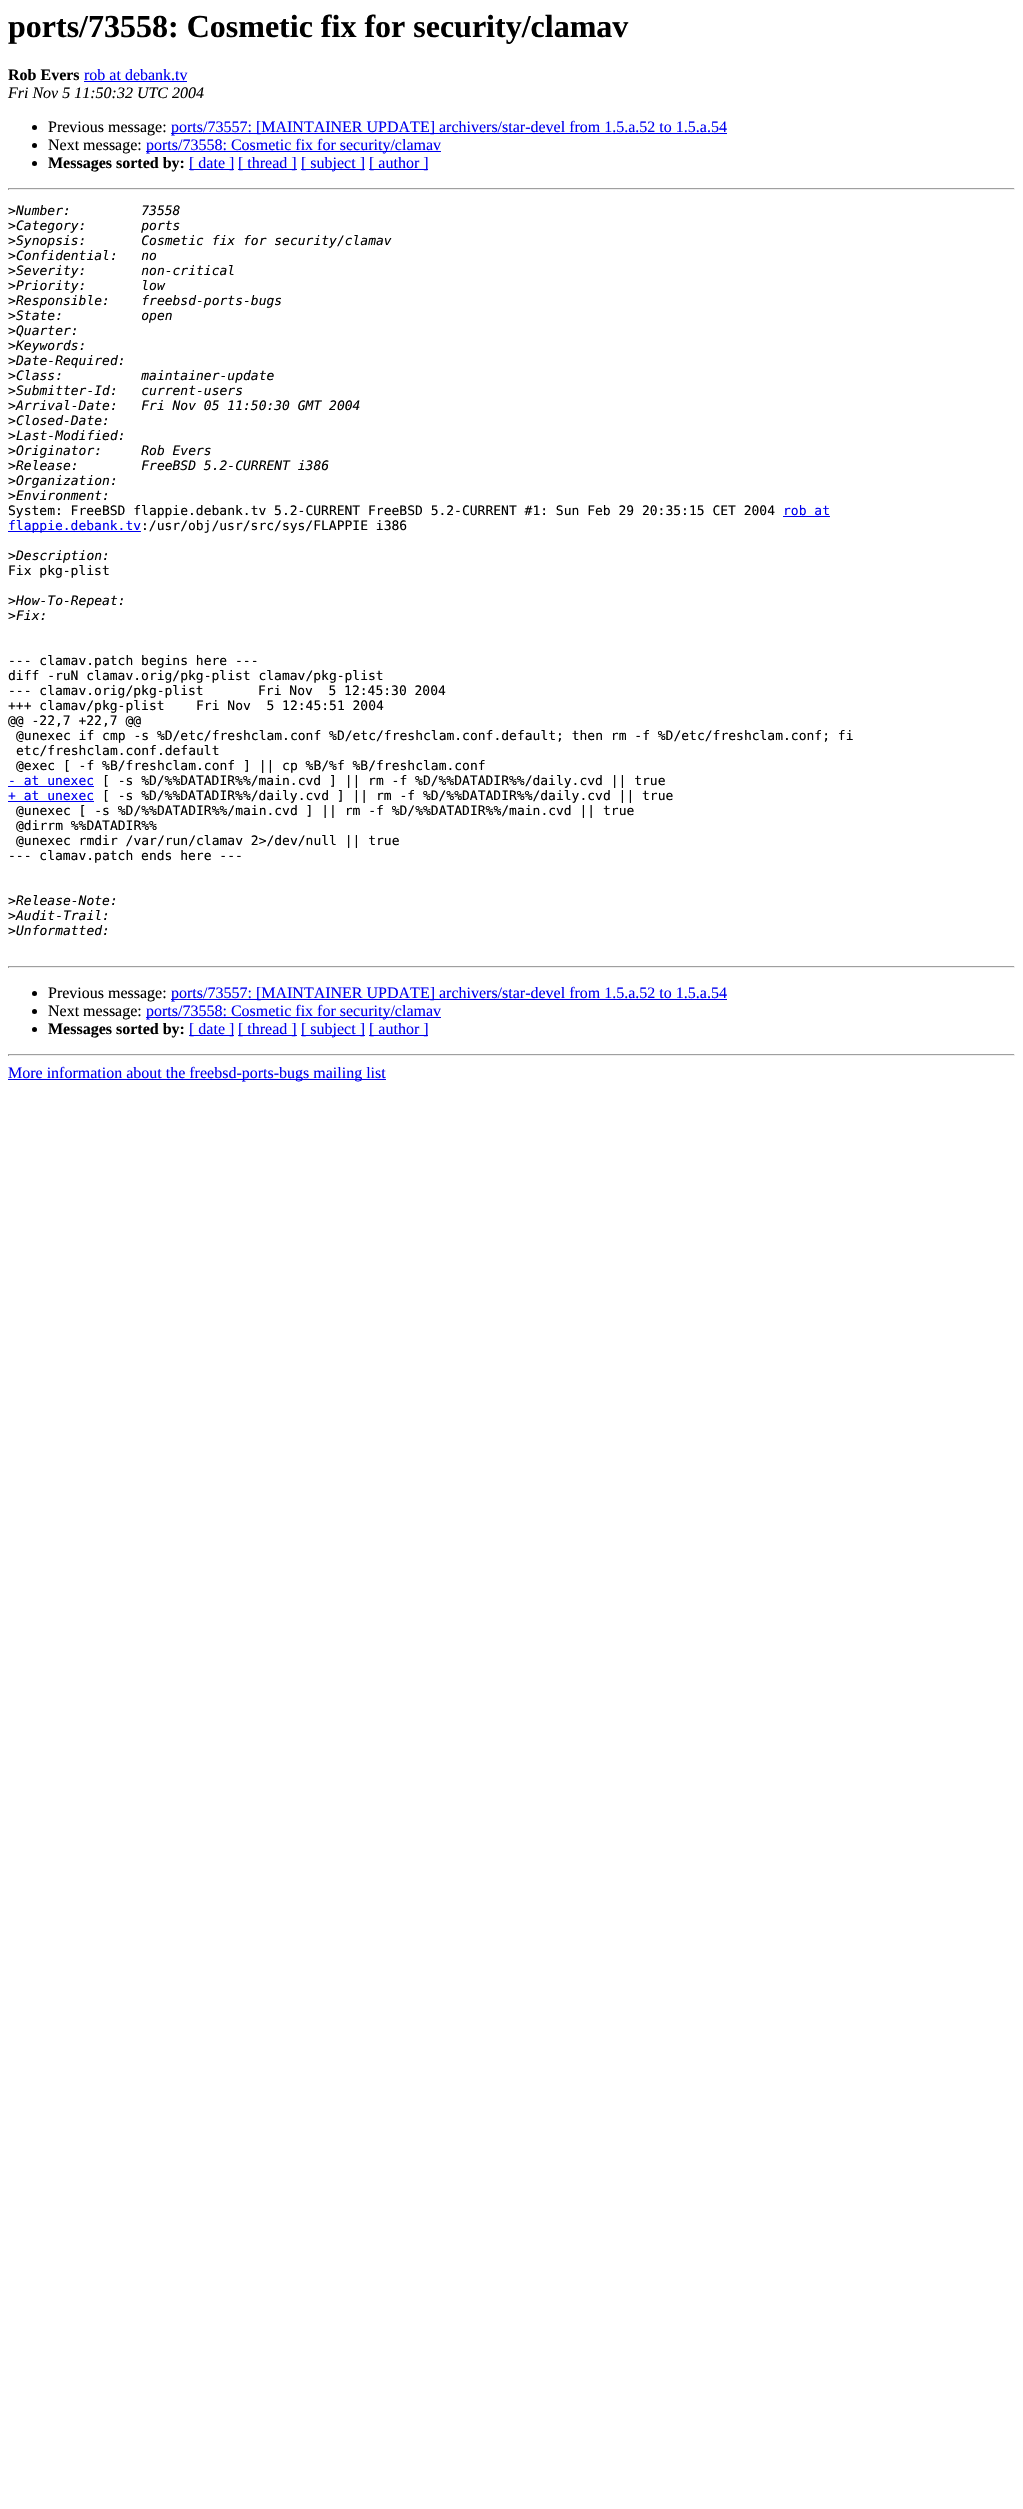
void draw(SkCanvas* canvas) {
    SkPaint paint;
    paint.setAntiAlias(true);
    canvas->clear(0xFFFFFFFF);
    SkFont font1(fontMgr->matchFamilyStyle("Liberation Serif", SkFontStyle::Bold()), 32);
    font1.setSubpixel(true);
    paint.setColor(0xFF000000);
    canvas->drawString("ports/73558: Cosmetic fix for security/clamav", 8, 37, font1, paint);
    SkFont font2(fontMgr->matchFamilyStyle("Liberation Serif", SkFontStyle::Bold()), 16);
    font2.setSubpixel(true);
    canvas->drawString("Rob Evers", 8, 80, font2, paint);
    SkFont font3(fontMgr->matchFamilyStyle("Liberation Serif", SkFontStyle::Normal()), 16);
    font3.setSubpixel(true);
    paint.setColor(0xFF0000EE);
    canvas->drawString("rob at debank.tv", 84, 80, font3, paint);
    canvas->drawRect(SkRect::MakeXYWH(84, 81, 103, 1), paint);
    SkFont font4(fontMgr->matchFamilyStyle("Liberation Serif", SkFontStyle::Italic()), 16);
    font4.setSubpixel(true);
    paint.setColor(0xFF000000);
    canvas->drawString("Fri Nov 5 11:50:32 UTC 2004", 8, 98, font4, paint);
    canvas->drawCircle(34.5f, 127.5f, 2.5f, paint);
    canvas->drawString("Previous message:", 48, 132, font3, paint);
    paint.setColor(0xFF0000EE);
    canvas->drawRect(SkRect::MakeXYWH(171, 133, 556, 1), paint);
    canvas->drawString("ports/73557: [MAINTAINER UPDATE] archivers/star-devel from 1.5.a.52 to 1.5.a.54", 171, 132, font3, paint);
    paint.setColor(0xFF000000);
    canvas->drawCircle(34.5f, 145.5f, 2.5f, paint);
    canvas->drawString("Next message:", 48, 150, font3, paint);
    paint.setColor(0xFF0000EE);
    canvas->drawRect(SkRect::MakeXYWH(146, 151, 295, 1), paint);
    canvas->drawString("ports/73558: Cosmetic fix for security/clamav", 146, 150, font3, paint);
    paint.setColor(0xFF000000);
    canvas->drawCircle(34.5f, 163.5f, 2.5f, paint);
    canvas->drawString("Messages sorted by:", 48, 168, font2, paint);
    paint.setColor(0xFF0000EE);
    canvas->drawRect(SkRect::MakeXYWH(189, 169, 45, 1), paint);
    canvas->drawString("[ date ]", 189, 168, font3, paint);
    canvas->drawRect(SkRect::MakeXYWH(238, 169, 59, 1), paint);
    canvas->drawString("[ thread ]", 238, 168, font3, paint);
    canvas->drawRect(SkRect::MakeXYWH(301, 169, 64, 1), paint);
    canvas->drawString("[ subject ]", 301, 168, font3, paint);
    canvas->drawRect(SkRect::MakeXYWH(369, 169, 59, 1), paint);
    canvas->drawString("[ author ]", 369, 168, font3, paint);
    paint.setColor(0xFF9F9F9F);
    canvas->drawRect(SkRect::MakeXYWH(8, 188, 1007, 1), paint);
    paint.setColor(0xFFEEEEEE);
    canvas->drawRect(SkRect::MakeXYWH(1014, 188, 1, 2), paint);
    canvas->drawRect(SkRect::MakeXYWH(8, 189, 1007, 1), paint);
    paint.setColor(0xFF9F9F9F);
    canvas->drawRect(SkRect::MakeXYWH(8, 188, 1, 2), paint);
    SkFont font5(fontMgr->matchFamilyStyle("DejaVu Sans Mono", SkFontStyle::Normal()), 13);
    font5.setSubpixel(true);
    paint.setColor(0xFF000000);
    canvas->drawString(">", 8, 215, font5, paint);
    SkFont font6(fontMgr->matchFamilyStyle("DejaVu Sans Mono", SkFontStyle::Italic()), 13);
    font6.setSubpixel(true);
    canvas->drawString("Number:         73558", 16, 215, font6, paint);
    canvas->drawString(">", 8, 230, font5, paint);
    canvas->drawString("Category:       ports", 16, 230, font6, paint);
    canvas->drawString(">", 8, 245, font5, paint);
    canvas->drawString("Synopsis:       Cosmetic fix for security/clamav", 16, 245, font6, paint);
    canvas->drawString(">", 8, 260, font5, paint);
    canvas->drawString("Confidential:   no", 16, 260, font6, paint);
    canvas->drawString(">", 8, 275, font5, paint);
    canvas->drawString("Severity:       non-critical", 16, 275, font6, paint);
    canvas->drawString(">", 8, 290, font5, paint);
    canvas->drawString("Priority:       low", 16, 290, font6, paint);
    canvas->drawString(">", 8, 305, font5, paint);
    canvas->drawString("Responsible:    freebsd-ports-bugs", 16, 305, font6, paint);
    canvas->drawString(">", 8, 320, font5, paint);
    canvas->drawString("State:          open", 16, 320, font6, paint);
    canvas->drawString(">", 8, 335, font5, paint);
    canvas->drawString("Quarter:", 16, 335, font6, paint);
    canvas->drawString(">", 8, 350, font5, paint);
    canvas->drawString("Keywords:", 16, 350, font6, paint);
    canvas->drawString(">", 8, 365, font5, paint);
    canvas->drawString("Date-Required:", 16, 365, font6, paint);
    canvas->drawString(">", 8, 380, font5, paint);
    canvas->drawString("Class:          maintainer-update", 16, 380, font6, paint);
    canvas->drawString(">", 8, 395, font5, paint);
    canvas->drawString("Submitter-Id:   current-users", 16, 395, font6, paint);
    canvas->drawString(">", 8, 410, font5, paint);
    canvas->drawString("Arrival-Date:   Fri Nov 05 11:50:30 GMT 2004", 16, 410, font6, paint);
    canvas->drawString(">", 8, 425, font5, paint);
    canvas->drawString("Closed-Date:", 16, 425, font6, paint);
    canvas->drawString(">", 8, 440, font5, paint);
    canvas->drawString("Last-Modified:", 16, 440, font6, paint);
    canvas->drawString(">", 8, 455, font5, paint);
    canvas->drawString("Originator:     Rob Evers", 16, 455, font6, paint);
    canvas->drawString(">", 8, 470, font5, paint);
    canvas->drawString("Release:        FreeBSD 5.2-CURRENT i386", 16, 470, font6, paint);
    canvas->drawString(">", 8, 485, font5, paint);
    canvas->drawString("Organization:", 16, 485, font6, paint);
    canvas->drawString(">", 8, 500, font5, paint);
    canvas->drawString("Environment:", 16, 500, font6, paint);
    canvas->drawString("System: FreeBSD flappie.debank.tv 5.2-CURRENT FreeBSD 5.2-CURRENT #1: Sun Feb 29 20:35:15 CET 2004", 8, 515, font5, paint);
    paint.setColor(0xFF0000EE);
    canvas->drawString("rob at", 783, 515, font5, paint);
    canvas->drawRect(SkRect::MakeXYWH(783, 516, 47, 1), paint);
    canvas->drawRect(SkRect::MakeXYWH(8, 531, 133, 1), paint);
    canvas->drawString("flappie.debank.tv", 8, 530, font5, paint);
    paint.setColor(0xFF000000);
    canvas->drawString(":/usr/obj/usr/src/sys/FLAPPIE i386", 141, 530, font5, paint);
    canvas->drawString(">", 8, 560, font5, paint);
    canvas->drawString("Description:", 16, 560, font6, paint);
    canvas->drawString("Fix pkg-plist", 8, 575, font5, paint);
    canvas->drawString(">", 8, 605, font5, paint);
    canvas->drawString("How-To-Repeat:", 16, 605, font6, paint);
    canvas->drawString(">", 8, 620, font5, paint);
    canvas->drawString("Fix:", 16, 620, font6, paint);
    canvas->drawString("--- clamav.patch begins here ---", 8, 665, font5, paint);
    canvas->drawString("diff -ruN clamav.orig/pkg-plist clamav/pkg-plist", 8, 680, font5, paint);
    canvas->drawString("--- clamav.orig/pkg-plist", 8, 695, font5, paint);
    canvas->drawString("Fri Nov  5 12:45:30 2004", 258, 695, font5, paint);
    canvas->drawString("+++ clamav/pkg-plist", 8, 710, font5, paint);
    canvas->drawString("Fri Nov  5 12:45:51 2004", 196, 710, font5, paint);
    canvas->drawString("@@ -22,7 +22,7 @@", 8, 725, font5, paint);
    canvas->drawString("@unexec if cmp -s %D/etc/freshclam.conf %D/etc/freshclam.conf.default; then rm -f %D/etc/freshclam.conf; fi", 16, 740, font5, paint);
    canvas->drawString("etc/freshclam.conf.default", 16, 755, font5, paint);
    canvas->drawString("@exec [ -f %B/freshclam.conf ] || cp %B/%f %B/freshclam.conf", 16, 770, font5, paint);
    paint.setColor(0xFF0000EE);
    canvas->drawString("- at unexec", 8, 785, font5, paint);
    canvas->drawRect(SkRect::MakeXYWH(8, 786, 86, 1), paint);
    paint.setColor(0xFF000000);
    canvas->drawString("[ -s %D/%%DATADIR%%/main.cvd ] || rm -f %D/%%DATADIR%%/daily.cvd || true", 102, 785, font5, paint);
    paint.setColor(0xFF0000EE);
    canvas->drawString("+ at unexec", 8, 800, font5, paint);
    canvas->drawRect(SkRect::MakeXYWH(8, 801, 86, 1), paint);
    paint.setColor(0xFF000000);
    canvas->drawString("[ -s %D/%%DATADIR%%/daily.cvd ] || rm -f %D/%%DATADIR%%/daily.cvd || true", 102, 800, font5, paint);
    canvas->drawString("@unexec [ -s %D/%%DATADIR%%/main.cvd ] || rm -f %D/%%DATADIR%%/main.cvd || true", 16, 815, font5, paint);
    canvas->drawString("@dirrm %%DATADIR%%", 16, 830, font5, paint);
    canvas->drawString("@unexec rmdir /var/run/clamav 2>/dev/null || true", 16, 845, font5, paint);
    canvas->drawString("--- clamav.patch ends here ---", 8, 860, font5, paint);
    canvas->drawString(">", 8, 905, font5, paint);
    canvas->drawString("Release-Note:", 16, 905, font6, paint);
    canvas->drawString(">", 8, 920, font5, paint);
    canvas->drawString("Audit-Trail:", 16, 920, font6, paint);
    canvas->drawString(">", 8, 935, font5, paint);
    canvas->drawString("Unformatted:", 16, 935, font6, paint);
    paint.setColor(0xFF9F9F9F);
    canvas->drawRect(SkRect::MakeXYWH(8, 966, 1007, 1), paint);
    paint.setColor(0xFFEEEEEE);
    canvas->drawRect(SkRect::MakeXYWH(1014, 966, 1, 2), paint);
    canvas->drawRect(SkRect::MakeXYWH(8, 967, 1007, 1), paint);
    paint.setColor(0xFF9F9F9F);
    canvas->drawRect(SkRect::MakeXYWH(8, 966, 1, 2), paint);
    paint.setColor(0xFF000000);
    canvas->drawCircle(34.5f, 993.5f, 2.5f, paint);
    canvas->drawString("Previous message:", 48, 998, font3, paint);
    paint.setColor(0xFF0000EE);
    canvas->drawRect(SkRect::MakeXYWH(171, 999, 556, 1), paint);
    canvas->drawString("ports/73557: [MAINTAINER UPDATE] archivers/star-devel from 1.5.a.52 to 1.5.a.54", 171, 998, font3, paint);
    paint.setColor(0xFF000000);
    canvas->drawCircle(34.5f, 1011.5f, 2.5f, paint);
    canvas->drawString("Next message:", 48, 1016, font3, paint);
    paint.setColor(0xFF0000EE);
    canvas->drawRect(SkRect::MakeXYWH(146, 1017, 295, 1), paint);
    canvas->drawString("ports/73558: Cosmetic fix for security/clamav", 146, 1016, font3, paint);
    paint.setColor(0xFF000000);
    canvas->drawCircle(34.5f, 1029.5f, 2.5f, paint);
    canvas->drawString("Messages sorted by:", 48, 1034, font2, paint);
    paint.setColor(0xFF0000EE);
    canvas->drawRect(SkRect::MakeXYWH(189, 1035, 45, 1), paint);
    canvas->drawString("[ date ]", 189, 1034, font3, paint);
    canvas->drawRect(SkRect::MakeXYWH(238, 1035, 59, 1), paint);
    canvas->drawString("[ thread ]", 238, 1034, font3, paint);
    canvas->drawRect(SkRect::MakeXYWH(301, 1035, 64, 1), paint);
    canvas->drawString("[ subject ]", 301, 1034, font3, paint);
    canvas->drawRect(SkRect::MakeXYWH(369, 1035, 59, 1), paint);
    canvas->drawString("[ author ]", 369, 1034, font3, paint);
    paint.setColor(0xFF9F9F9F);
    canvas->drawRect(SkRect::MakeXYWH(8, 1054, 1007, 1), paint);
    paint.setColor(0xFFEEEEEE);
    canvas->drawRect(SkRect::MakeXYWH(1014, 1054, 1, 2), paint);
    canvas->drawRect(SkRect::MakeXYWH(8, 1055, 1007, 1), paint);
    paint.setColor(0xFF9F9F9F);
    canvas->drawRect(SkRect::MakeXYWH(8, 1054, 1, 2), paint);
    paint.setColor(0xFF0000EE);
    canvas->drawRect(SkRect::MakeXYWH(8, 1079, 378, 1), paint);
    canvas->drawString("More information about the freebsd-ports-bugs mailing list", 8, 1078, font3, paint);
}
